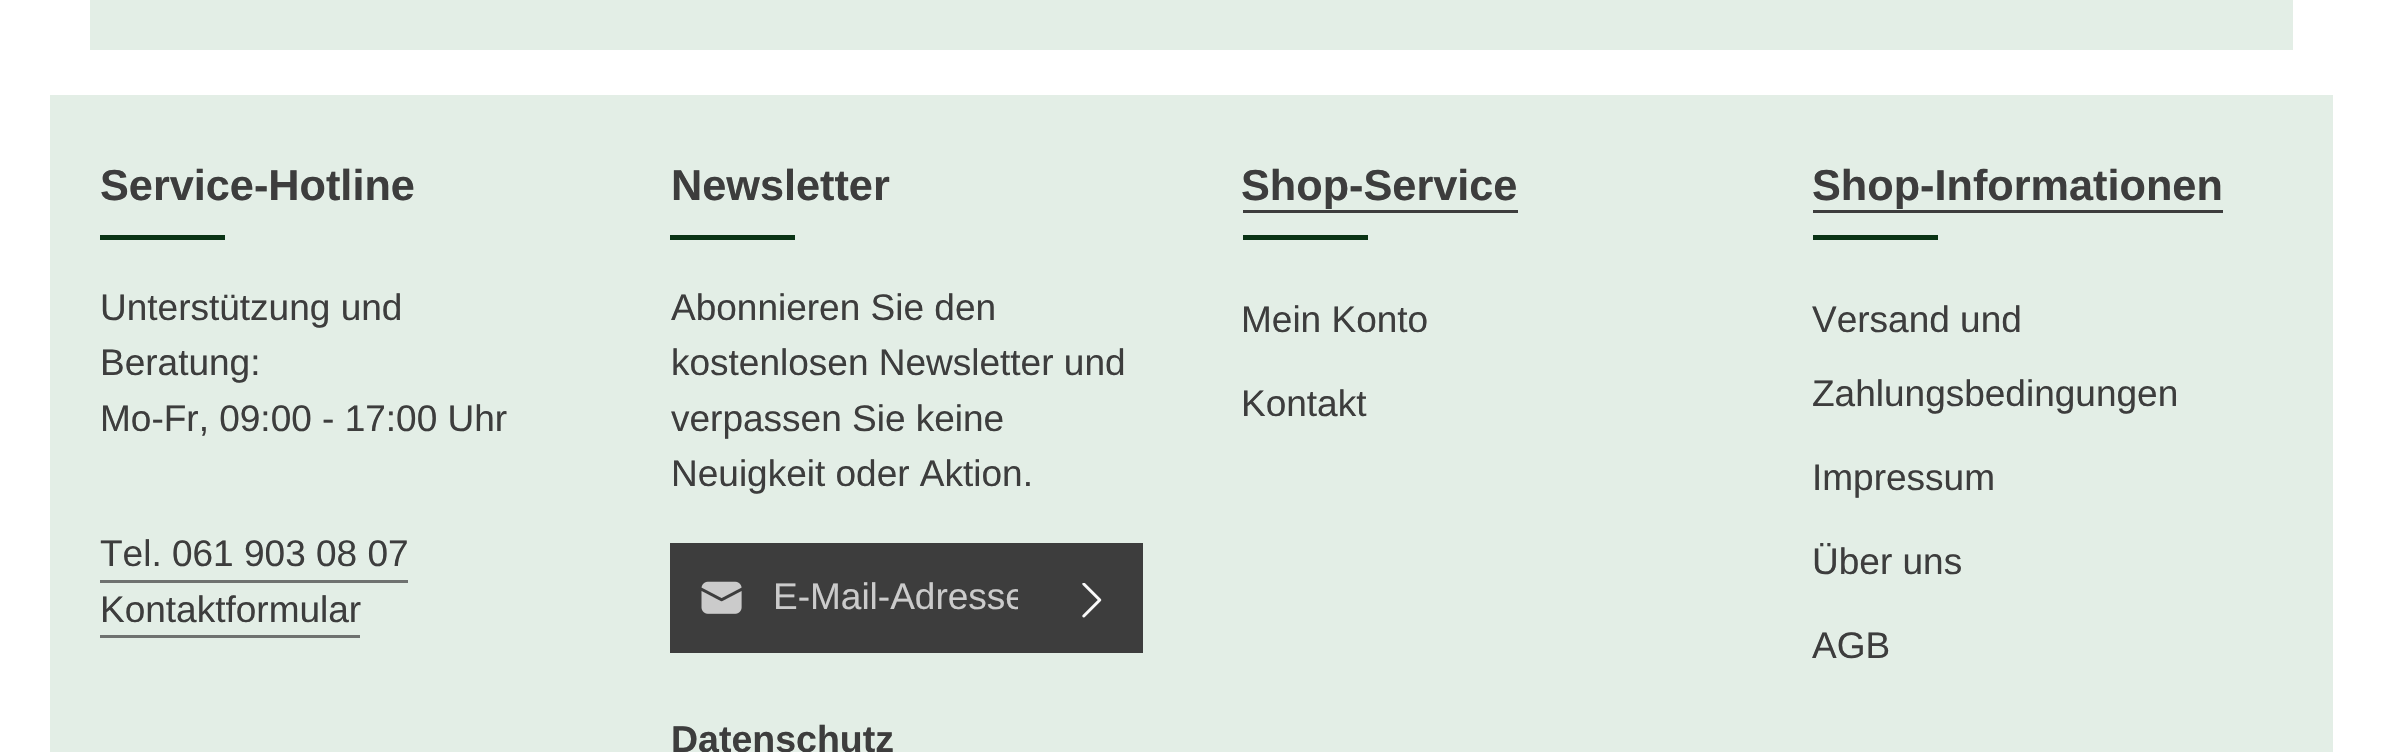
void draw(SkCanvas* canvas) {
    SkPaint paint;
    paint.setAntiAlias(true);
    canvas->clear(0xFFFFFFFF);
    paint.setColor(0xFFE3EEE6);
    canvas->drawRect(SkRect::MakeXYWH(90, 0, 2203, 50), paint);
    canvas->drawRect(SkRect::MakeXYWH(50, 95, 2283, 657), paint);
    SkFont font1(fontMgr->matchFamilyStyle("Liberation Sans", SkFontStyle::Bold()), 43.25f);
    font1.setSubpixel(true);
    paint.setColor(0xFF3D3D3D);
    canvas->drawString("Service-Hotline", 100, 200, font1, paint);
    paint.setColor(0xFF0A3315);
    canvas->drawRect(SkRect::MakeXYWH(100, 235, 125, 5), paint);
    SkFont font2(fontMgr->matchFamilyStyle("Liberation Sans", SkFontStyle::Normal()), 37);
    font2.setSubpixel(true);
    paint.setColor(0xFF3D3D3D);
    canvas->drawString("Unterstützung und", 100, 320, font2, paint);
    canvas->drawString("Beratung:", 100, 375, font2, paint);
    canvas->drawString("Mo-Fr, 09:00 - 17:00 Uhr", 100, 431, font2, paint);
    canvas->drawString("Tel. 061 903 08 07", 100, 566, font2, paint);
    paint.setColor(0xFF6F7270);
    canvas->drawRect(SkRect::MakeXYWH(100, 580, 308, 3), paint);
    paint.setColor(0xFF3D3D3D);
    canvas->drawString("Kontaktformular", 100, 622, font2, paint);
    paint.setColor(0xFF6F7270);
    canvas->drawRect(SkRect::MakeXYWH(100, 635, 260, 3), paint);
    paint.setColor(0xFF3D3D3D);
    canvas->drawString("Newsletter", 671, 200, font1, paint);
    paint.setColor(0xFF0A3315);
    canvas->drawRect(SkRect::MakeXYWH(670, 235, 125, 5), paint);
    paint.setColor(0xFF3D3D3D);
    canvas->drawString("Abonnieren Sie den", 671, 320, font2, paint);
    canvas->drawString("kostenlosen Newsletter und", 671, 375, font2, paint);
    canvas->drawString("verpassen Sie keine", 671, 431, font2, paint);
    canvas->drawString("Neuigkeit oder Aktion.", 671, 486, font2, paint);
    canvas->drawRect(SkRect::MakeXYWH(670, 543, 473, 110), paint);
    canvas->drawImageRect(SkImages::DeferredFromEncodedData(SkData::MakeFromFileName("img1.png")), SkRect::MakeXYWH(701, 581, 41, 33), SkSamplingOptions());
    canvas->save();
    canvas->clipRect(SkRect::MakeXYWH(773, 578, 245, 40));
    paint.setColor(0xFFCBCBCB);
    canvas->drawString("E-Mail-Adresse", 773, 609, font2, paint);
    canvas->restore();
    canvas->drawImageRect(SkImages::DeferredFromEncodedData(SkData::MakeFromFileName("img2.png")), SkRect::MakeXYWH(1082, 583, 20, 35), SkSamplingOptions());
    SkFont font3(fontMgr->matchFamilyStyle("Liberation Sans", SkFontStyle::Bold()), 37.5f);
    font3.setSubpixel(true);
    paint.setColor(0xFF3D3D3D);
    canvas->drawString("Datenschutz", 671, 752, font3, paint);
    canvas->drawString("Shop-Service", 1241, 200, font1, paint);
    canvas->drawRect(SkRect::MakeXYWH(1243, 210, 275, 3), paint);
    paint.setColor(0xFF0A3315);
    canvas->drawRect(SkRect::MakeXYWH(1243, 235, 125, 5), paint);
    paint.setColor(0xFF3D3D3D);
    canvas->drawString("Mein Konto", 1241, 332, font2, paint);
    canvas->drawString("Kontakt", 1241, 416, font2, paint);
    canvas->drawString("Shop-Informationen", 1812, 200, font1, paint);
    canvas->drawRect(SkRect::MakeXYWH(1813, 210, 410, 3), paint);
    paint.setColor(0xFF0A3315);
    canvas->drawRect(SkRect::MakeXYWH(1813, 235, 125, 5), paint);
    paint.setColor(0xFF3D3D3D);
    canvas->drawString("Versand und", 1812, 332, font2, paint);
    canvas->drawString("Zahlungsbedingungen", 1812, 406, font2, paint);
    canvas->drawString("Impressum", 1812, 490, font2, paint);
    canvas->drawString("Über uns", 1812, 574, font2, paint);
    canvas->drawString("AGB", 1812, 658, font2, paint);
}
